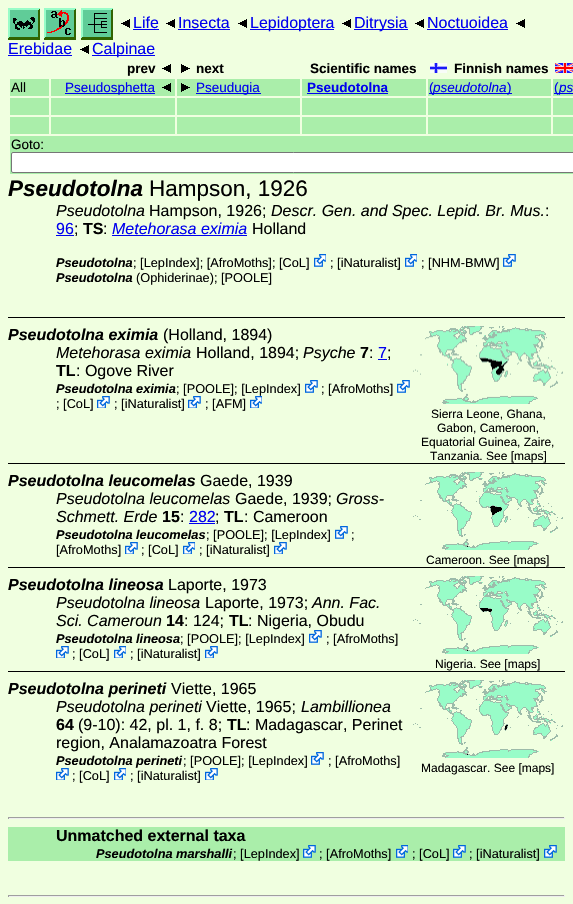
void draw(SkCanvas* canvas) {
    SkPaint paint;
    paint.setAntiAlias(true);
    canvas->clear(0xFFF0FFE0);
    canvas->drawImageRect(SkImages::DeferredFromEncodedData(SkData::MakeFromFileName("img1.png")), SkRect::MakeXYWH(8, 8, 32, 32), SkSamplingOptions());
    canvas->drawImageRect(SkImages::DeferredFromEncodedData(SkData::MakeFromFileName("img2.png")), SkRect::MakeXYWH(44, 8, 32, 32), SkSamplingOptions());
    canvas->drawImageRect(SkImages::DeferredFromEncodedData(SkData::MakeFromFileName("img3.png")), SkRect::MakeXYWH(81, 8, 32, 32), SkSamplingOptions());
    canvas->drawImageRect(SkImages::DeferredFromEncodedData(SkData::MakeFromFileName("img4.png")), SkRect::MakeXYWH(121, 19, 9, 9), SkSamplingOptions());
    SkFont font1(fontMgr->matchFamilyStyle("Liberation Sans", SkFontStyle::Normal()), 16);
    font1.setSubpixel(true);
    paint.setColor(0xFF0000EE);
    canvas->drawString("Life", 133, 28, font1, paint);
    canvas->drawRect(SkRect::MakeXYWH(133, 29, 26, 1), paint);
    canvas->drawImageRect(SkImages::DeferredFromEncodedData(SkData::MakeFromFileName("img4.png")), SkRect::MakeXYWH(166, 19, 9, 9), SkSamplingOptions());
    canvas->drawString("Insecta", 178, 28, font1, paint);
    canvas->drawRect(SkRect::MakeXYWH(178, 29, 52, 1), paint);
    canvas->drawImageRect(SkImages::DeferredFromEncodedData(SkData::MakeFromFileName("img4.png")), SkRect::MakeXYWH(238, 19, 9, 9), SkSamplingOptions());
    canvas->drawRect(SkRect::MakeXYWH(250, 29, 84, 1), paint);
    canvas->drawString("Lepidoptera", 250, 28, font1, paint);
    canvas->drawImageRect(SkImages::DeferredFromEncodedData(SkData::MakeFromFileName("img4.png")), SkRect::MakeXYWH(342, 19, 9, 9), SkSamplingOptions());
    canvas->drawRect(SkRect::MakeXYWH(354, 29, 54, 1), paint);
    canvas->drawString("Ditrysia", 354, 28, font1, paint);
    canvas->drawImageRect(SkImages::DeferredFromEncodedData(SkData::MakeFromFileName("img4.png")), SkRect::MakeXYWH(415, 19, 9, 9), SkSamplingOptions());
    canvas->drawString("Noctuoidea", 427, 28, font1, paint);
    canvas->drawRect(SkRect::MakeXYWH(427, 29, 81, 1), paint);
    canvas->drawImageRect(SkImages::DeferredFromEncodedData(SkData::MakeFromFileName("img4.png")), SkRect::MakeXYWH(516, 19, 9, 9), SkSamplingOptions());
    canvas->drawString("Erebidae", 8, 54, font1, paint);
    canvas->drawRect(SkRect::MakeXYWH(8, 55, 64, 1), paint);
    canvas->drawImageRect(SkImages::DeferredFromEncodedData(SkData::MakeFromFileName("img4.png")), SkRect::MakeXYWH(80, 45, 9, 9), SkSamplingOptions());
    canvas->drawRect(SkRect::MakeXYWH(92, 55, 63, 1), paint);
    canvas->drawString("Calpinae", 92, 54, font1, paint);
    SkFont font2(fontMgr->matchFamilyStyle("Liberation Sans", SkFontStyle::Bold()), 13.5f);
    font2.setSubpixel(true);
    paint.setColor(0xFF000000);
    canvas->drawString("prev", 127, 73, font2, paint);
    canvas->drawImageRect(SkImages::DeferredFromEncodedData(SkData::MakeFromFileName("img4.png")), SkRect::MakeXYWH(162, 64, 9, 9), SkSamplingOptions());
    canvas->drawImageRect(SkImages::DeferredFromEncodedData(SkData::MakeFromFileName("img5.png")), SkRect::MakeXYWH(181, 64, 9, 9), SkSamplingOptions());
    canvas->drawString("next", 196, 73, font2, paint);
    canvas->drawString("Scientific names", 310, 73, font2, paint);
    canvas->drawImageRect(SkImages::DeferredFromEncodedData(SkData::MakeFromFileName("img6.png")), SkRect::MakeXYWH(430, 63, 17, 10), SkSamplingOptions());
    canvas->drawString("Finnish names", 454, 73, font2, paint);
    canvas->drawImageRect(SkImages::DeferredFromEncodedData(SkData::MakeFromFileName("img7.png")), SkRect::MakeXYWH(555, 63, 18, 10), SkSamplingOptions());
    paint.setColor(0xFFAAEEAA);
    canvas->drawRect(SkRect::MakeXYWH(10, 79, 39, 17), paint);
    SkFont font3(fontMgr->matchFamilyStyle("Liberation Sans", SkFontStyle::Normal()), 13.5f);
    font3.setSubpixel(true);
    paint.setColor(0xFF000000);
    canvas->drawString("All", 11, 92, font3, paint);
    paint.setColor(0xFFAAEEAA);
    canvas->drawRect(SkRect::MakeXYWH(51, 79, 124, 17), paint);
    paint.setColor(0xFF0000EE);
    canvas->drawRect(SkRect::MakeXYWH(65, 93, 90, 1), paint);
    canvas->drawString("Pseudosphetta", 65, 92, font3, paint);
    canvas->drawImageRect(SkImages::DeferredFromEncodedData(SkData::MakeFromFileName("img8.png")), SkRect::MakeXYWH(162, 83, 9, 9), SkSamplingOptions());
    paint.setColor(0xFFAAEEAA);
    canvas->drawRect(SkRect::MakeXYWH(177, 79, 123, 17), paint);
    canvas->drawImageRect(SkImages::DeferredFromEncodedData(SkData::MakeFromFileName("img9.png")), SkRect::MakeXYWH(181, 83, 9, 9), SkSamplingOptions());
    paint.setColor(0xFF0000EE);
    canvas->drawRect(SkRect::MakeXYWH(196, 93, 65, 1), paint);
    canvas->drawString("Pseudugia", 196, 92, font3, paint);
    paint.setColor(0xFFAAEEAA);
    canvas->drawRect(SkRect::MakeXYWH(302, 79, 124, 17), paint);
    paint.setColor(0xFF0000EE);
    canvas->drawString("Pseudotolna", 307, 92, font2, paint);
    canvas->drawRect(SkRect::MakeXYWH(307, 93, 81, 1), paint);
    paint.setColor(0xFFAAEEAA);
    canvas->drawRect(SkRect::MakeXYWH(428, 79, 123, 17), paint);
    paint.setColor(0xFF0000EE);
    canvas->drawRect(SkRect::MakeXYWH(429, 93, 4, 1), paint);
    canvas->drawString("(", 429, 92, font3, paint);
    canvas->drawRect(SkRect::MakeXYWH(433, 93, 79, 1), paint);
    SkFont font4(fontMgr->matchFamilyStyle("Liberation Sans", SkFontStyle::Italic()), 13.5f);
    font4.setSubpixel(true);
    canvas->drawString("pseudotolna", 433, 92, font4, paint);
    canvas->drawString(")", 507, 92, font3, paint);
    paint.setColor(0xFFAAEEAA);
    canvas->drawRect(SkRect::MakeXYWH(553, 79, 20, 17), paint);
    paint.setColor(0xFF0000EE);
    canvas->drawRect(SkRect::MakeXYWH(554, 93, 19, 1), paint);
    canvas->drawString("(", 554, 92, font3, paint);
    canvas->drawString("ps", 559, 92, font4, paint);
    paint.setColor(0xFFAAEEAA);
    canvas->drawRect(SkRect::MakeXYWH(10, 98, 39, 17), paint);
    canvas->drawRect(SkRect::MakeXYWH(51, 98, 124, 17), paint);
    canvas->drawRect(SkRect::MakeXYWH(177, 98, 123, 17), paint);
    canvas->drawRect(SkRect::MakeXYWH(302, 98, 124, 17), paint);
    canvas->drawRect(SkRect::MakeXYWH(428, 98, 123, 17), paint);
    canvas->drawRect(SkRect::MakeXYWH(553, 98, 20, 17), paint);
    canvas->drawRect(SkRect::MakeXYWH(10, 117, 39, 17), paint);
    canvas->drawRect(SkRect::MakeXYWH(51, 117, 124, 17), paint);
    canvas->drawRect(SkRect::MakeXYWH(177, 117, 123, 17), paint);
    canvas->drawRect(SkRect::MakeXYWH(302, 117, 124, 17), paint);
    canvas->drawRect(SkRect::MakeXYWH(428, 117, 123, 17), paint);
    canvas->drawRect(SkRect::MakeXYWH(553, 117, 20, 17), paint);
    canvas->drawRect(SkRect::MakeXYWH(10, 136, 563, 38), paint);
    paint.setColor(0xFF000000);
    canvas->drawString("Goto:", 11, 149, font3, paint);
    paint.setColor(0xFFFFFFFF);
    canvas->drawRoundRect(SkRect::MakeXYWH(11.5f, 152.5f, 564, 20), 1.5f, 1.5f, paint);
    paint.setStyle(SkPaint::kStroke_Style);
    paint.setStrokeWidth(1);
    paint.setColor(0xFF767676);
    canvas->drawRoundRect(SkRect::MakeXYWH(11.5f, 152.5f, 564, 20), 1.5f, 1.5f, paint);
    SkFont font5(fontMgr->matchFamilyStyle("Liberation Sans", SkFontStyle::BoldItalic()), 22.5f);
    font5.setSubpixel(true);
    paint.setStyle(SkPaint::kFill_Style);
    paint.setColor(0xFF000000);
    canvas->drawString("Pseudotolna", 8, 196, font5, paint);
    SkFont font6(fontMgr->matchFamilyStyle("Liberation Sans", SkFontStyle::Normal()), 22.5f);
    font6.setSubpixel(true);
    canvas->drawString("Hampson, 1926", 149, 196, font6, paint);
    SkFont font7(fontMgr->matchFamilyStyle("Liberation Sans", SkFontStyle::Italic()), 16);
    font7.setSubpixel(true);
    canvas->drawString("Pseudotolna", 56, 216, font7, paint);
    canvas->drawString("Hampson, 1926;", 149, 216, font1, paint);
    canvas->drawString("Descr. Gen. and Spec. Lepid. Br. Mus.", 271, 216, font7, paint);
    canvas->drawString(":", 545, 216, font1, paint);
    paint.setColor(0xFF0000EE);
    canvas->drawString("96", 56, 234, font1, paint);
    canvas->drawRect(SkRect::MakeXYWH(56, 235, 18, 1), paint);
    paint.setColor(0xFF000000);
    canvas->drawString(";", 74, 234, font1, paint);
    SkFont font8(fontMgr->matchFamilyStyle("Liberation Sans", SkFontStyle::Bold()), 16);
    font8.setSubpixel(true);
    canvas->drawString("TS", 83, 234, font8, paint);
    canvas->drawString(":", 103, 234, font1, paint);
    paint.setColor(0xFF0000EE);
    canvas->drawString("Metehorasa eximia", 112, 234, font7, paint);
    canvas->drawRect(SkRect::MakeXYWH(112, 235, 135, 1), paint);
    paint.setColor(0xFF000000);
    canvas->drawString("Holland", 252, 234, font1, paint);
    SkFont font9(fontMgr->matchFamilyStyle("Liberation Sans", SkFontStyle::BoldItalic()), 12.75f);
    font9.setSubpixel(true);
    canvas->drawString("Pseudotolna", 56, 267, font9, paint);
    SkFont font10(fontMgr->matchFamilyStyle("Liberation Sans", SkFontStyle::Normal()), 12.75f);
    font10.setSubpixel(true);
    canvas->drawString("; [LepIndex]; [AfroMoths]; [CoL]", 133, 267, font10, paint);
    canvas->drawImageRect(SkImages::DeferredFromEncodedData(SkData::MakeFromFileName("img10.png")), SkRect::MakeXYWH(314, 254, 12, 13), SkSamplingOptions());
    canvas->drawString("; [iNaturalist]", 330, 267, font10, paint);
    canvas->drawImageRect(SkImages::DeferredFromEncodedData(SkData::MakeFromFileName("img10.png")), SkRect::MakeXYWH(405, 254, 12, 13), SkSamplingOptions());
    canvas->drawString("; [NHM-BMW]", 421, 267, font10, paint);
    canvas->drawImageRect(SkImages::DeferredFromEncodedData(SkData::MakeFromFileName("img11.png")), SkRect::MakeXYWH(503, 254, 13, 13), SkSamplingOptions());
    canvas->drawString("Pseudotolna", 56, 282, font9, paint);
    canvas->drawString("(Ophiderinae); [POOLE]", 136, 282, font10, paint);
    canvas->drawRect(SkRect::MakeXYWH(8, 317, 557, 1), paint);
    SkFont font11(fontMgr->matchFamilyStyle("Liberation Sans", SkFontStyle::BoldItalic()), 16);
    font11.setSubpixel(true);
    canvas->drawString("Pseudotolna eximia", 8, 340, font11, paint);
    canvas->drawString("(Holland, 1894)", 163, 340, font1, paint);
    canvas->drawString("Metehorasa eximia", 56, 358, font7, paint);
    canvas->drawString("Holland, 1894;", 196, 358, font1, paint);
    canvas->drawString("Psyche", 303, 358, font7, paint);
    canvas->drawString("7", 360, 358, font8, paint);
    canvas->drawString(":", 369, 358, font1, paint);
    paint.setColor(0xFF0000EE);
    canvas->drawString("7", 378, 358, font1, paint);
    canvas->drawRect(SkRect::MakeXYWH(378, 359, 9, 1), paint);
    paint.setColor(0xFF000000);
    canvas->drawString(";", 387, 358, font1, paint);
    canvas->drawString("TL", 56, 376, font8, paint);
    canvas->drawString(": Ogove River", 76, 376, font1, paint);
    canvas->drawString("Pseudotolna eximia", 56, 393, font9, paint);
    canvas->drawString("; [POOLE]; [LepIndex]", 176, 393, font10, paint);
    canvas->drawImageRect(SkImages::DeferredFromEncodedData(SkData::MakeFromFileName("img11.png")), SkRect::MakeXYWH(305, 380, 13, 13), SkSamplingOptions());
    canvas->drawString("; [AfroMoths]", 321, 393, font10, paint);
    canvas->drawImageRect(SkImages::DeferredFromEncodedData(SkData::MakeFromFileName("img11.png")), SkRect::MakeXYWH(397, 380, 13, 13), SkSamplingOptions());
    canvas->drawString("; [CoL]", 56, 408, font10, paint);
    canvas->drawImageRect(SkImages::DeferredFromEncodedData(SkData::MakeFromFileName("img12.png")), SkRect::MakeXYWH(97, 396, 13, 12), SkSamplingOptions());
    canvas->drawString("; [iNaturalist]", 114, 408, font10, paint);
    canvas->drawImageRect(SkImages::DeferredFromEncodedData(SkData::MakeFromFileName("img12.png")), SkRect::MakeXYWH(188, 396, 13, 12), SkSamplingOptions());
    canvas->drawString("; [AFM]", 205, 408, font10, paint);
    canvas->drawImageRect(SkImages::DeferredFromEncodedData(SkData::MakeFromFileName("img13.png")), SkRect::MakeXYWH(250, 396, 12, 12), SkSamplingOptions());
    canvas->drawImageRect(SkImages::DeferredFromEncodedData(SkData::MakeFromFileName("img14.png")), SkRect::MakeXYWH(413, 326, 150, 78), SkSamplingOptions());
    SkFont font12(fontMgr->matchFamilyStyle("Liberation Sans", SkFontStyle::Normal()), 12);
    font12.setSubpixel(true);
    canvas->drawString("Sierra Leone, Ghana,", 431, 418, font12, paint);
    canvas->drawString("Gabon, Cameroon,", 437, 432, font12, paint);
    canvas->drawString("Equatorial Guinea, Zaire,", 421, 446, font12, paint);
    canvas->drawString("Tanzania. See [maps]", 430, 460, font12, paint);
    canvas->drawRect(SkRect::MakeXYWH(8, 463, 557, 1), paint);
    canvas->drawString("Pseudotolna leucomelas", 8, 486, font11, paint);
    canvas->drawString("Gaede, 1939", 200, 486, font1, paint);
    canvas->drawString("Pseudotolna leucomelas", 56, 504, font7, paint);
    canvas->drawString("Gaede, 1939;", 235, 504, font1, paint);
    canvas->drawString("Gross-", 336, 504, font7, paint);
    canvas->drawString("Schmett. Erde", 56, 522, font7, paint);
    canvas->drawString("15", 162, 522, font8, paint);
    canvas->drawString(":", 180, 522, font1, paint);
    paint.setColor(0xFF0000EE);
    canvas->drawString("282", 189, 522, font1, paint);
    canvas->drawRect(SkRect::MakeXYWH(189, 523, 26, 1), paint);
    paint.setColor(0xFF000000);
    canvas->drawString(";", 215, 522, font1, paint);
    canvas->drawString("TL", 224, 522, font8, paint);
    canvas->drawString(": Cameroon", 244, 522, font1, paint);
    canvas->drawString("Pseudotolna leucomelas", 56, 539, font9, paint);
    canvas->drawString("; [POOLE]; [LepIndex]", 206, 539, font10, paint);
    canvas->drawImageRect(SkImages::DeferredFromEncodedData(SkData::MakeFromFileName("img11.png")), SkRect::MakeXYWH(335, 526, 13, 13), SkSamplingOptions());
    canvas->drawString(";", 351, 539, font10, paint);
    canvas->drawString("[AfroMoths]", 56, 554, font10, paint);
    canvas->drawImageRect(SkImages::DeferredFromEncodedData(SkData::MakeFromFileName("img12.png")), SkRect::MakeXYWH(125, 542, 13, 12), SkSamplingOptions());
    canvas->drawString("; [CoL]", 141, 554, font10, paint);
    canvas->drawImageRect(SkImages::DeferredFromEncodedData(SkData::MakeFromFileName("img13.png")), SkRect::MakeXYWH(183, 542, 12, 12), SkSamplingOptions());
    canvas->drawString("; [iNaturalist]", 199, 554, font10, paint);
    canvas->drawImageRect(SkImages::DeferredFromEncodedData(SkData::MakeFromFileName("img12.png")), SkRect::MakeXYWH(274, 542, 13, 12), SkSamplingOptions());
    canvas->drawImageRect(SkImages::DeferredFromEncodedData(SkData::MakeFromFileName("img15.png")), SkRect::MakeXYWH(413, 472, 150, 78), SkSamplingOptions());
    canvas->drawString("Cameroon. See [maps]", 426, 564, font12, paint);
    canvas->drawRect(SkRect::MakeXYWH(8, 567, 557, 1), paint);
    canvas->drawString("Pseudotolna lineosa", 8, 590, font11, paint);
    canvas->drawString("Laporte, 1973", 168, 590, font1, paint);
    canvas->drawString("Pseudotolna lineosa", 56, 608, font7, paint);
    canvas->drawString("Laporte, 1973;", 205, 608, font1, paint);
    canvas->drawString("Ann. Fac.", 312, 608, font7, paint);
    canvas->drawString("Sci. Cameroun", 56, 626, font7, paint);
    canvas->drawString("14", 166, 626, font8, paint);
    canvas->drawString(": 124;", 184, 626, font1, paint);
    canvas->drawString("TL", 229, 626, font8, paint);
    canvas->drawString(": Nigeria, Obudu", 248, 626, font1, paint);
    canvas->drawString("Pseudotolna lineosa", 56, 643, font9, paint);
    canvas->drawString("; [POOLE]; [LepIndex]", 180, 643, font10, paint);
    canvas->drawImageRect(SkImages::DeferredFromEncodedData(SkData::MakeFromFileName("img11.png")), SkRect::MakeXYWH(309, 630, 13, 13), SkSamplingOptions());
    canvas->drawString("; [AfroMoths]", 326, 643, font10, paint);
    canvas->drawImageRect(SkImages::DeferredFromEncodedData(SkData::MakeFromFileName("img12.png")), SkRect::MakeXYWH(56, 646, 13, 12), SkSamplingOptions());
    canvas->drawString("; [CoL]", 72, 658, font10, paint);
    canvas->drawImageRect(SkImages::DeferredFromEncodedData(SkData::MakeFromFileName("img13.png")), SkRect::MakeXYWH(114, 646, 12, 12), SkSamplingOptions());
    canvas->drawString("; [iNaturalist]", 130, 658, font10, paint);
    canvas->drawImageRect(SkImages::DeferredFromEncodedData(SkData::MakeFromFileName("img12.png")), SkRect::MakeXYWH(205, 646, 13, 12), SkSamplingOptions());
    canvas->drawImageRect(SkImages::DeferredFromEncodedData(SkData::MakeFromFileName("img16.png")), SkRect::MakeXYWH(413, 576, 150, 78), SkSamplingOptions());
    canvas->drawString("Nigeria. See [maps]", 435, 668, font12, paint);
    canvas->drawRect(SkRect::MakeXYWH(8, 671, 557, 1), paint);
    canvas->drawString("Pseudotolna perineti", 8, 694, font11, paint);
    canvas->drawString("Viette, 1965", 171, 694, font1, paint);
    canvas->drawString("Pseudotolna perineti", 56, 712, font7, paint);
    canvas->drawString("Viette, 1965;", 206, 712, font1, paint);
    canvas->drawString("Lambillionea", 301, 712, font7, paint);
    canvas->drawString("64", 56, 730, font8, paint);
    canvas->drawString("(9-10): 42, pl. 1, f. 8;", 78, 730, font1, paint);
    canvas->drawString("TL", 227, 730, font8, paint);
    canvas->drawString(": Madagascar, Perinet", 246, 730, font1, paint);
    canvas->drawString("region, Analamazoatra Forest", 56, 748, font1, paint);
    canvas->drawString("Pseudotolna perineti", 56, 765, font9, paint);
    canvas->drawString("; [POOLE]; [LepIndex]", 183, 765, font10, paint);
    canvas->drawImageRect(SkImages::DeferredFromEncodedData(SkData::MakeFromFileName("img11.png")), SkRect::MakeXYWH(311, 752, 13, 13), SkSamplingOptions());
    canvas->drawString("; [AfroMoths]", 328, 765, font10, paint);
    canvas->drawImageRect(SkImages::DeferredFromEncodedData(SkData::MakeFromFileName("img12.png")), SkRect::MakeXYWH(56, 768, 13, 12), SkSamplingOptions());
    canvas->drawString("; [CoL]", 72, 780, font10, paint);
    canvas->drawImageRect(SkImages::DeferredFromEncodedData(SkData::MakeFromFileName("img13.png")), SkRect::MakeXYWH(114, 768, 12, 12), SkSamplingOptions());
    canvas->drawString("; [iNaturalist]", 130, 780, font10, paint);
    canvas->drawImageRect(SkImages::DeferredFromEncodedData(SkData::MakeFromFileName("img12.png")), SkRect::MakeXYWH(205, 768, 13, 12), SkSamplingOptions());
    canvas->drawImageRect(SkImages::DeferredFromEncodedData(SkData::MakeFromFileName("img17.png")), SkRect::MakeXYWH(413, 680, 150, 78), SkSamplingOptions());
    canvas->drawString("Madagascar. See [maps]", 421, 772, font12, paint);
    paint.setColor(0xFF9F9F9F);
    canvas->drawRect(SkRect::MakeXYWH(8, 817, 557, 1), paint);
    paint.setColor(0xFFEEEEEE);
    canvas->drawRect(SkRect::MakeXYWH(564, 817, 1, 2), paint);
    canvas->drawRect(SkRect::MakeXYWH(8, 818, 557, 1), paint);
    paint.setColor(0xFF9F9F9F);
    canvas->drawRect(SkRect::MakeXYWH(8, 817, 1, 2), paint);
    paint.setColor(0xFFAAEEAA);
    canvas->drawRect(SkRect::MakeXYWH(8, 827, 557, 34), paint);
    paint.setColor(0xFF000000);
    canvas->drawString("Unmatched external taxa", 56, 841, font8, paint);
    canvas->drawString("Pseudotolna marshalli", 96, 858, font9, paint);
    canvas->drawString("; [LepIndex]", 233, 858, font10, paint);
    canvas->drawImageRect(SkImages::DeferredFromEncodedData(SkData::MakeFromFileName("img18.png")), SkRect::MakeXYWH(303, 845, 13, 13), SkSamplingOptions());
    canvas->drawString("; [AfroMoths]", 319, 858, font10, paint);
    canvas->drawImageRect(SkImages::DeferredFromEncodedData(SkData::MakeFromFileName("img19.png")), SkRect::MakeXYWH(396, 845, 12, 13), SkSamplingOptions());
    canvas->drawString("; [CoL]", 412, 858, font10, paint);
    canvas->drawImageRect(SkImages::DeferredFromEncodedData(SkData::MakeFromFileName("img18.png")), SkRect::MakeXYWH(453, 845, 13, 13), SkSamplingOptions());
    canvas->drawString("; [iNaturalist]", 469, 858, font10, paint);
    canvas->drawImageRect(SkImages::DeferredFromEncodedData(SkData::MakeFromFileName("img18.png")), SkRect::MakeXYWH(544, 845, 13, 13), SkSamplingOptions());
    paint.setColor(0xFF9F9F9F);
    canvas->drawRect(SkRect::MakeXYWH(8, 895, 557, 1), paint);
    paint.setColor(0xFFEEEEEE);
    canvas->drawRect(SkRect::MakeXYWH(564, 895, 1, 2), paint);
    canvas->drawRect(SkRect::MakeXYWH(8, 896, 557, 1), paint);
    paint.setColor(0xFF9F9F9F);
    canvas->drawRect(SkRect::MakeXYWH(8, 895, 1, 2), paint);
}
